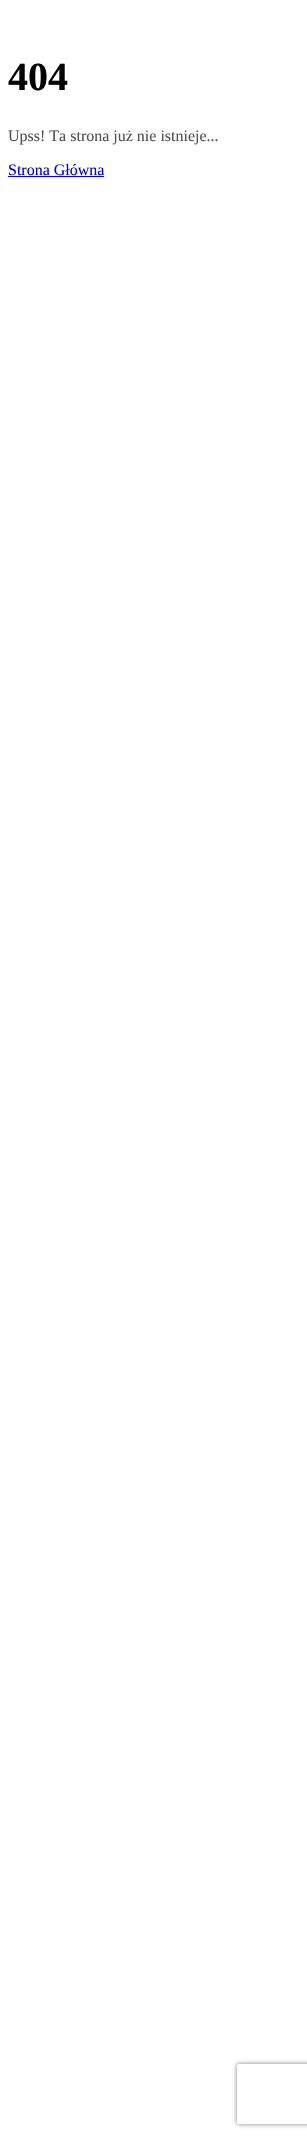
void draw(SkCanvas* canvas) {
    SkPaint paint;
    paint.setAntiAlias(true);
    canvas->clear(0xFFFFFFFF);
    SkFont font1(fontMgr->matchFamilyStyle("Liberation Serif", SkFontStyle::Bold()), 40);
    font1.setSubpixel(true);
    paint.setColor(0xFF000000);
    canvas->drawString("404", 8, 90, font1, paint);
    SkFont font2(fontMgr->matchFamilyStyle("Liberation Serif", SkFontStyle::Normal()), 16);
    font2.setSubpixel(true);
    paint.setColor(0xFF505050);
    canvas->drawString("Upss! Ta strona już nie istnieje...", 8, 141, font2, paint);
    paint.setColor(0xFF0000EE);
    canvas->drawString("Strona Główna", 8, 175, font2, paint);
    canvas->drawRect(SkRect::MakeXYWH(8, 176, 96, 1), paint);
    canvas->save();
    canvas->clipPath(SkPathBuilder(SkPathFillType::kEvenOdd).moveTo(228, 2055).lineTo(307, 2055).lineTo(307, 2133).lineTo(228, 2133).close().moveTo(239, 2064).lineTo(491, 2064).cubicTo(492, 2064, 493, 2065, 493, 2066).lineTo(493, 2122).cubicTo(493, 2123, 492, 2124, 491, 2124).lineTo(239, 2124).cubicTo(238, 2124, 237, 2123, 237, 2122).lineTo(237, 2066).cubicTo(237, 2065, 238, 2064, 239, 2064).close().detach(), true);
    paint.setColor(0xFF808080);
    paint.setMaskFilter(SkMaskFilter::MakeBlur(kNormal_SkBlurStyle, 2.5f));
    canvas->drawRoundRect(SkRect::MakeXYWH(237, 2064, 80, 60), 2, 2, paint);
    paint.setMaskFilter(nullptr);
    canvas->restore();
}
